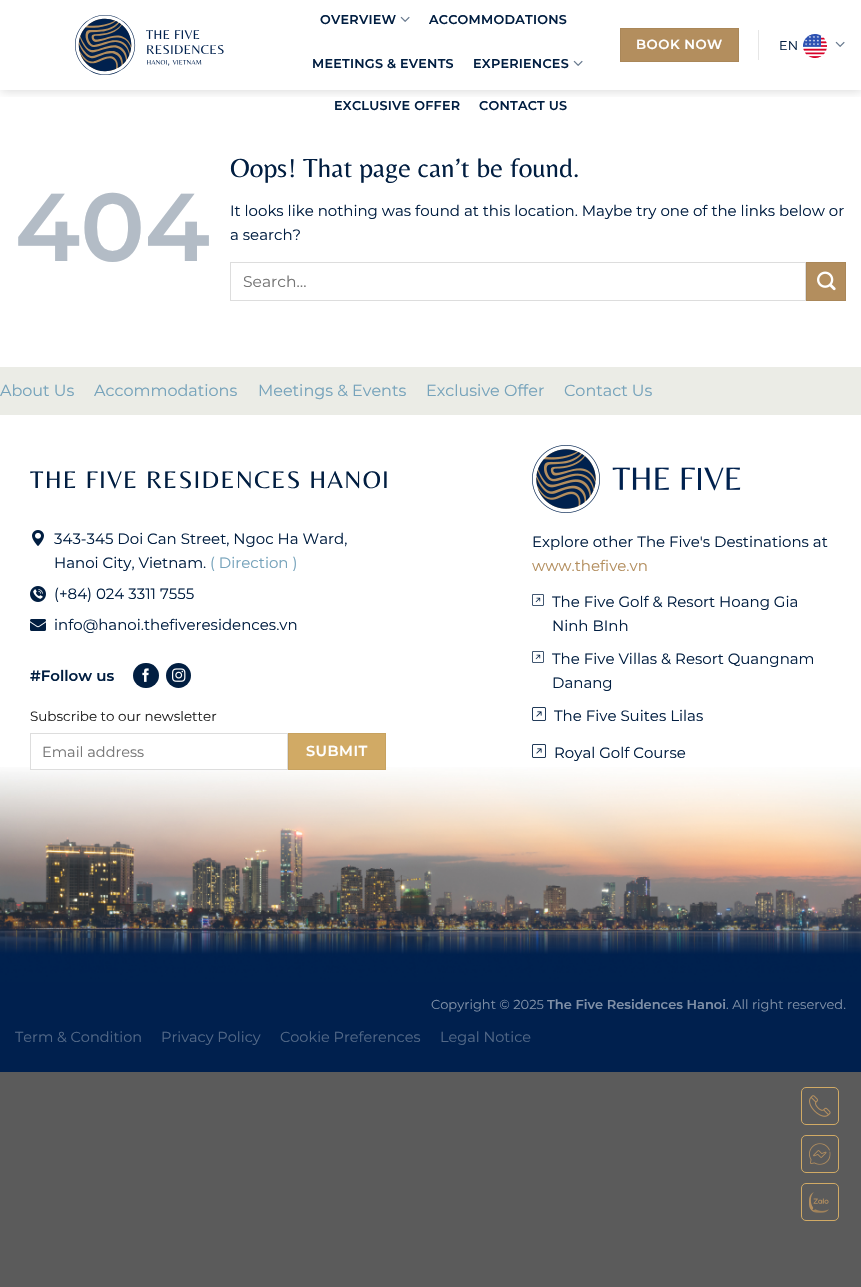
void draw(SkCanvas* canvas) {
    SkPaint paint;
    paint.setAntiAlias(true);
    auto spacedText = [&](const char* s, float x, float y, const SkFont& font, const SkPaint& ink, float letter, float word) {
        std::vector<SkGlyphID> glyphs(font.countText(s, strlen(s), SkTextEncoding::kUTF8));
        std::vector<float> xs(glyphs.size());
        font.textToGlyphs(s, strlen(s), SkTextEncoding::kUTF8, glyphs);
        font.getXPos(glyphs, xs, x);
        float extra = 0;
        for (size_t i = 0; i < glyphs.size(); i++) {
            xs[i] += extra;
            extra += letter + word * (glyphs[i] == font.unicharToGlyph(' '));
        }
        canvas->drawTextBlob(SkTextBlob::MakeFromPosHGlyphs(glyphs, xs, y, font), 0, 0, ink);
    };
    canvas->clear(0xFF5B5B5B);
    paint.setColor(0xFFFFFFFF);
    canvas->drawRect(SkRect::MakeXYWH(0, 0, 861, 767), paint);
    canvas->save();
    canvas->clipRect(SkRect::MakeXYWH(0, 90, 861, 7));
    paint.setColor(0x26000000);
    paint.setMaskFilter(SkMaskFilter::MakeBlur(kNormal_SkBlurStyle, 5));
    canvas->drawRect(SkRect::MakeXYWH(1, 1, 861, 90), paint);
    paint.setMaskFilter(nullptr);
    canvas->restore();
    canvas->drawImageRect(SkImages::DeferredFromEncodedData(SkData::MakeFromFileName("img1.png")), SkRect::MakeXYWH(75, 15, 149, 60), SkSamplingOptions());
    SkFont font1(fontMgr->matchFamilyStyle("Montserrat", SkFontStyle(600, SkFontStyle::kNormal_Width, SkFontStyle::kUpright_Slant)), 12.75f);
    font1.setSubpixel(true);
    paint.setColor(0xFF011E41);
    spacedText("OVERVIEW", 320, 24, font1, paint, 0.25f, 0);
    canvas->drawImageRect(SkImages::DeferredFromEncodedData(SkData::MakeFromFileName("img2.png")), SkRect::MakeXYWH(400, 16, 10, 6), SkSamplingOptions());
    spacedText("ACCOMMODATIONS", 429, 24, font1, paint, 0.25f, 0);
    spacedText("MEETINGS & EVENTS", 312, 68, font1, paint, 0.25f, 0);
    spacedText("EXPERIENCES", 473, 68, font1, paint, 0.25f, 0);
    canvas->drawImageRect(SkImages::DeferredFromEncodedData(SkData::MakeFromFileName("img2.png")), SkRect::MakeXYWH(573, 60, 10, 6), SkSamplingOptions());
    spacedText("EXCLUSIVE OFFER", 334, 110, font1, paint, 0.25f, 0);
    spacedText("CONTACT US", 479, 110, font1, paint, 0.25f, 0);
    paint.setColor(0xFFB38E5E);
    canvas->drawRect(SkRect::MakeXYWH(620.5f, 28.5f, 118, 33), paint);
    paint.setStyle(SkPaint::kStroke_Style);
    paint.setStrokeWidth(1);
    paint.setColor(0xFFAA8759);
    canvas->drawRect(SkRect::MakeXYWH(620.5f, 28.5f, 118, 33), paint);
    SkFont font2(fontMgr->matchFamilyStyle("Montserrat", SkFontStyle(600, SkFontStyle::kNormal_Width, SkFontStyle::kUpright_Slant)), 13.25f);
    font2.setSubpixel(true);
    paint.setStyle(SkPaint::kFill_Style);
    paint.setColor(0xFFFFFFFF);
    spacedText("BOOK NOW", 636, 49, font2, paint, 0.5f, 0);
    paint.setColor(0xFFE6E6E6);
    canvas->drawRect(SkRect::MakeXYWH(758, 30, 1, 30), paint);
    SkFont font3(fontMgr->matchFamilyStyle("Montserrat", SkFontStyle::Normal()), 12.75f);
    font3.setSubpixel(true);
    paint.setColor(0xFF011E41);
    spacedText("EN", 779, 50, font3, paint, 0.25f, 0);
    canvas->drawImageRect(SkImages::DeferredFromEncodedData(SkData::MakeFromFileName("img3.png")), SkRect::MakeXYWH(803, 34, 24, 24), SkSamplingOptions());
    canvas->drawImageRect(SkImages::DeferredFromEncodedData(SkData::MakeFromFileName("img2.png")), SkRect::MakeXYWH(835, 41, 10, 6), SkSamplingOptions());
    SkFont font4(fontMgr->matchFamilyStyle("Montserrat", SkFontStyle(600, SkFontStyle::kNormal_Width, SkFontStyle::kUpright_Slant)), 96);
    font4.setSubpixel(true);
    paint.setColor(0xFFB3BCC6);
    canvas->drawString("404", 15, 261, font4, paint);
    SkFont font5(fontMgr->matchFamilyStyle("Belleza", SkFontStyle::Normal()), 27.25f);
    font5.setSubpixel(true);
    paint.setColor(0xFF011E41);
    canvas->drawString("Oops! That page can’t be found.", 230, 177, font5, paint);
    SkFont font6(fontMgr->matchFamilyStyle("Montserrat", SkFontStyle::Normal()), 15);
    font6.setSubpixel(true);
    canvas->drawString("It looks like nothing was found at this location. Maybe try one of the links below or", 230, 216, font6, paint);
    canvas->drawString("a search?", 230, 240, font6, paint);
    paint.setStyle(SkPaint::kStroke_Style);
    paint.setColor(0xFFDDDDDD);
    canvas->drawRect(SkRect::MakeXYWH(230.5f, 262.5f, 575, 38), paint);
    SkFont font7(fontMgr->matchFamilyStyle("Montserrat", SkFontStyle::Normal()), 15.5f);
    font7.setSubpixel(true);
    paint.setStyle(SkPaint::kFill_Style);
    paint.setColor(0xFF757575);
    canvas->drawString("Search…", 243, 287, font7, paint);
    paint.setColor(0xFFB38E5E);
    canvas->drawRect(SkRect::MakeXYWH(806.5f, 262.5f, 39, 38), paint);
    paint.setStyle(SkPaint::kStroke_Style);
    paint.setColor(0xFFAA8759);
    canvas->drawRect(SkRect::MakeXYWH(806.5f, 262.5f, 39, 38), paint);
    canvas->drawImageRect(SkImages::DeferredFromEncodedData(SkData::MakeFromFileName("img4.png")), SkRect::MakeXYWH(817, 271, 19, 20), SkSamplingOptions());
    paint.setStyle(SkPaint::kFill_Style);
    paint.setColor(0xFFEBECE6);
    canvas->drawRect(SkRect::MakeXYWH(0, 367, 861, 48), paint);
    SkFont font8(fontMgr->matchFamilyStyle("Montserrat", SkFontStyle::Normal()), 16);
    font8.setSubpixel(true);
    paint.setColor(0xFF76A3BB);
    canvas->drawString("About Us", 0, 396, font8, paint);
    canvas->drawString("Accommodations", 94, 396, font8, paint);
    canvas->drawString("Meetings & Events", 258, 396, font8, paint);
    canvas->drawString("Exclusive Offer", 426, 396, font8, paint);
    canvas->drawString("Contact Us", 564, 396, font8, paint);
    canvas->drawImageRect(SkImages::DeferredFromEncodedData(SkData::MakeFromFileName("img5.png")), SkRect::MakeXYWH(0, 767, 861, 215), SkSamplingOptions());
    SkFont font9(fontMgr->matchFamilyStyle("Belleza", SkFontStyle::Normal()), 25);
    font9.setSubpixel(true);
    paint.setColor(0xFF011E41);
    spacedText("THE FIVE RESIDENCES HANOI", 30, 488, font9, paint, 1.25f, 0);
    canvas->drawImageRect(SkImages::DeferredFromEncodedData(SkData::MakeFromFileName("img6.png")), SkRect::MakeXYWH(32, 530, 12, 16), SkSamplingOptions());
    canvas->drawString("343-345 Doi Can Street, Ngoc Ha Ward,", 54, 544, font6, paint);
    canvas->drawString("Hanoi City, Vietnam.", 54, 568, font6, paint);
    paint.setColor(0xFF76A3BB);
    canvas->drawString("( Direction )", 210, 568, font6, paint);
    canvas->drawImageRect(SkImages::DeferredFromEncodedData(SkData::MakeFromFileName("img7.png")), SkRect::MakeXYWH(30, 586, 16, 16), SkSamplingOptions());
    paint.setColor(0xFF011E41);
    canvas->drawString("(+84) 024 3311 7555", 54, 599, font6, paint);
    canvas->drawImageRect(SkImages::DeferredFromEncodedData(SkData::MakeFromFileName("img8.png")), SkRect::MakeXYWH(30, 619, 16, 12), SkSamplingOptions());
    canvas->drawString("info@hanoi.thefiveresidences.vn", 54, 630, font6, paint);
    SkFont font10(fontMgr->matchFamilyStyle("Montserrat", SkFontStyle(600, SkFontStyle::kNormal_Width, SkFontStyle::kUpright_Slant)), 15);
    font10.setSubpixel(true);
    canvas->drawString("#Follow us", 30, 681, font10, paint);
    canvas->drawRoundRect(SkRect::MakeXYWH(133, 663, 26, 25), 12.5f, 12.5f, paint);
    canvas->drawImageRect(SkImages::DeferredFromEncodedData(SkData::MakeFromFileName("img9.png")), SkRect::MakeXYWH(142, 668, 7, 14), SkSamplingOptions());
    canvas->drawCircle(178.5f, 675.5f, 12.5f, paint);
    canvas->drawImageRect(SkImages::DeferredFromEncodedData(SkData::MakeFromFileName("img10.png")), SkRect::MakeXYWH(172, 668, 14, 14), SkSamplingOptions());
    SkFont font11(fontMgr->matchFamilyStyle("Montserrat", SkFontStyle::Normal()), 13.5f);
    font11.setSubpixel(true);
    paint.setColor(0xFF222222);
    canvas->drawString("Subscribe to our newsletter", 30, 721, font11, paint);
    paint.setColor(0xFFFFFFFF);
    canvas->drawRect(SkRect::MakeXYWH(31, 767, 256, 2), paint);
    paint.setStyle(SkPaint::kStroke_Style);
    paint.setColor(0xFFDDDDDD);
    canvas->drawRect(SkRect::MakeXYWH(30.5f, 733.5f, 257, 36), paint);
    SkFont font12(fontMgr->matchFamilyStyle("Montserrat", SkFontStyle::Normal()), 14.5f);
    font12.setSubpixel(true);
    paint.setStyle(SkPaint::kFill_Style);
    paint.setColor(0xFF757575);
    canvas->drawString("Email address", 42, 757, font12, paint);
    paint.setColor(0xFFD1AA65);
    canvas->drawRect(SkRect::MakeXYWH(288.5f, 733.5f, 97, 36), paint);
    paint.setStyle(SkPaint::kStroke_Style);
    paint.setColor(0xFFC7A260);
    canvas->drawRect(SkRect::MakeXYWH(288.5f, 733.5f, 97, 36), paint);
    SkFont font13(fontMgr->matchFamilyStyle("Montserrat", SkFontStyle(600, SkFontStyle::kNormal_Width, SkFontStyle::kUpright_Slant)), 14.5f);
    font13.setSubpixel(true);
    paint.setStyle(SkPaint::kFill_Style);
    paint.setColor(0xFFFFFFFF);
    spacedText("SUBMIT", 306, 756, font13, paint, 0.5f, 0);
    canvas->drawImageRect(SkImages::DeferredFromEncodedData(SkData::MakeFromFileName("img11.png")), SkRect::MakeXYWH(532, 445, 209, 68), SkSamplingOptions());
    paint.setColor(0xFF011E41);
    canvas->drawString("Explore other The Five's Destinations at", 532, 547, font6, paint);
    paint.setColor(0xFFB38E5E);
    canvas->drawString("www.thefive.vn", 532, 571, font6, paint);
    canvas->drawImageRect(SkImages::DeferredFromEncodedData(SkData::MakeFromFileName("img12.png")), SkRect::MakeXYWH(532, 594, 12, 12), SkSamplingOptions());
    paint.setColor(0xFF011E41);
    canvas->drawString("The Five Golf & Resort Hoang Gia", 552, 607, font6, paint);
    canvas->drawString("Ninh BInh", 552, 631, font6, paint);
    canvas->drawImageRect(SkImages::DeferredFromEncodedData(SkData::MakeFromFileName("img12.png")), SkRect::MakeXYWH(532, 651, 12, 12), SkSamplingOptions());
    canvas->drawString("The Five Villas & Resort Quangnam", 552, 664, font6, paint);
    canvas->drawString("Danang", 552, 688, font6, paint);
    canvas->drawImageRect(SkImages::DeferredFromEncodedData(SkData::MakeFromFileName("img13.png")), SkRect::MakeXYWH(532, 707, 14, 14), SkSamplingOptions());
    canvas->drawString("The Five Suites Lilas", 554, 721, font6, paint);
    canvas->drawImageRect(SkImages::DeferredFromEncodedData(SkData::MakeFromFileName("img13.png")), SkRect::MakeXYWH(532, 744, 14, 14), SkSamplingOptions());
    canvas->drawString("Royal Golf Course", 554, 758, font6, paint);
    paint.setColor(0xFF00204E);
    canvas->drawRect(SkRect::MakeXYWH(0, 982, 861, 90), paint);
    SkFont font14(fontMgr->matchFamilyStyle("Montserrat", SkFontStyle::Normal()), 13);
    font14.setSubpixel(true);
    paint.setColor(0xFF8090A7);
    canvas->drawString("Copyright © 2025", 431, 1009, font14, paint);
    SkFont font15(fontMgr->matchFamilyStyle("Montserrat", SkFontStyle(600, SkFontStyle::kNormal_Width, SkFontStyle::kUpright_Slant)), 13);
    font15.setSubpixel(true);
    canvas->drawString("The Five Residences Hanoi", 547, 1009, font15, paint);
    canvas->drawString(". All right reserved.", 726, 1009, font14, paint);
    paint.setColor(0xFF526887);
    canvas->drawString("Term & Condition", 15, 1042, font12, paint);
    canvas->drawString("Privacy Policy", 161, 1042, font12, paint);
    canvas->drawString("Cookie Preferences", 280, 1042, font12, paint);
    canvas->drawString("Legal Notice", 440, 1042, font12, paint);
    paint.setStyle(SkPaint::kStroke_Style);
    paint.setColor(0xFFD1AA65);
    canvas->drawRoundRect(SkRect::MakeXYWH(801.5f, 1087.5f, 37, 37), 4.5f, 4.5f, paint);
    canvas->drawImageRect(SkImages::DeferredFromEncodedData(SkData::MakeFromFileName("img14.png")), SkRect::MakeXYWH(809, 1095, 22, 22), SkSamplingOptions());
    canvas->drawRoundRect(SkRect::MakeXYWH(801.5f, 1135.5f, 37, 37), 4.5f, 4.5f, paint);
    canvas->drawImageRect(SkImages::DeferredFromEncodedData(SkData::MakeFromFileName("img15.png")), SkRect::MakeXYWH(809, 1143, 22, 22), SkSamplingOptions());
    canvas->drawRoundRect(SkRect::MakeXYWH(801.5f, 1183.5f, 37, 37), 4.5f, 4.5f, paint);
    canvas->drawImageRect(SkImages::DeferredFromEncodedData(SkData::MakeFromFileName("img16.png")), SkRect::MakeXYWH(809, 1192, 20, 21), SkSamplingOptions());
}
